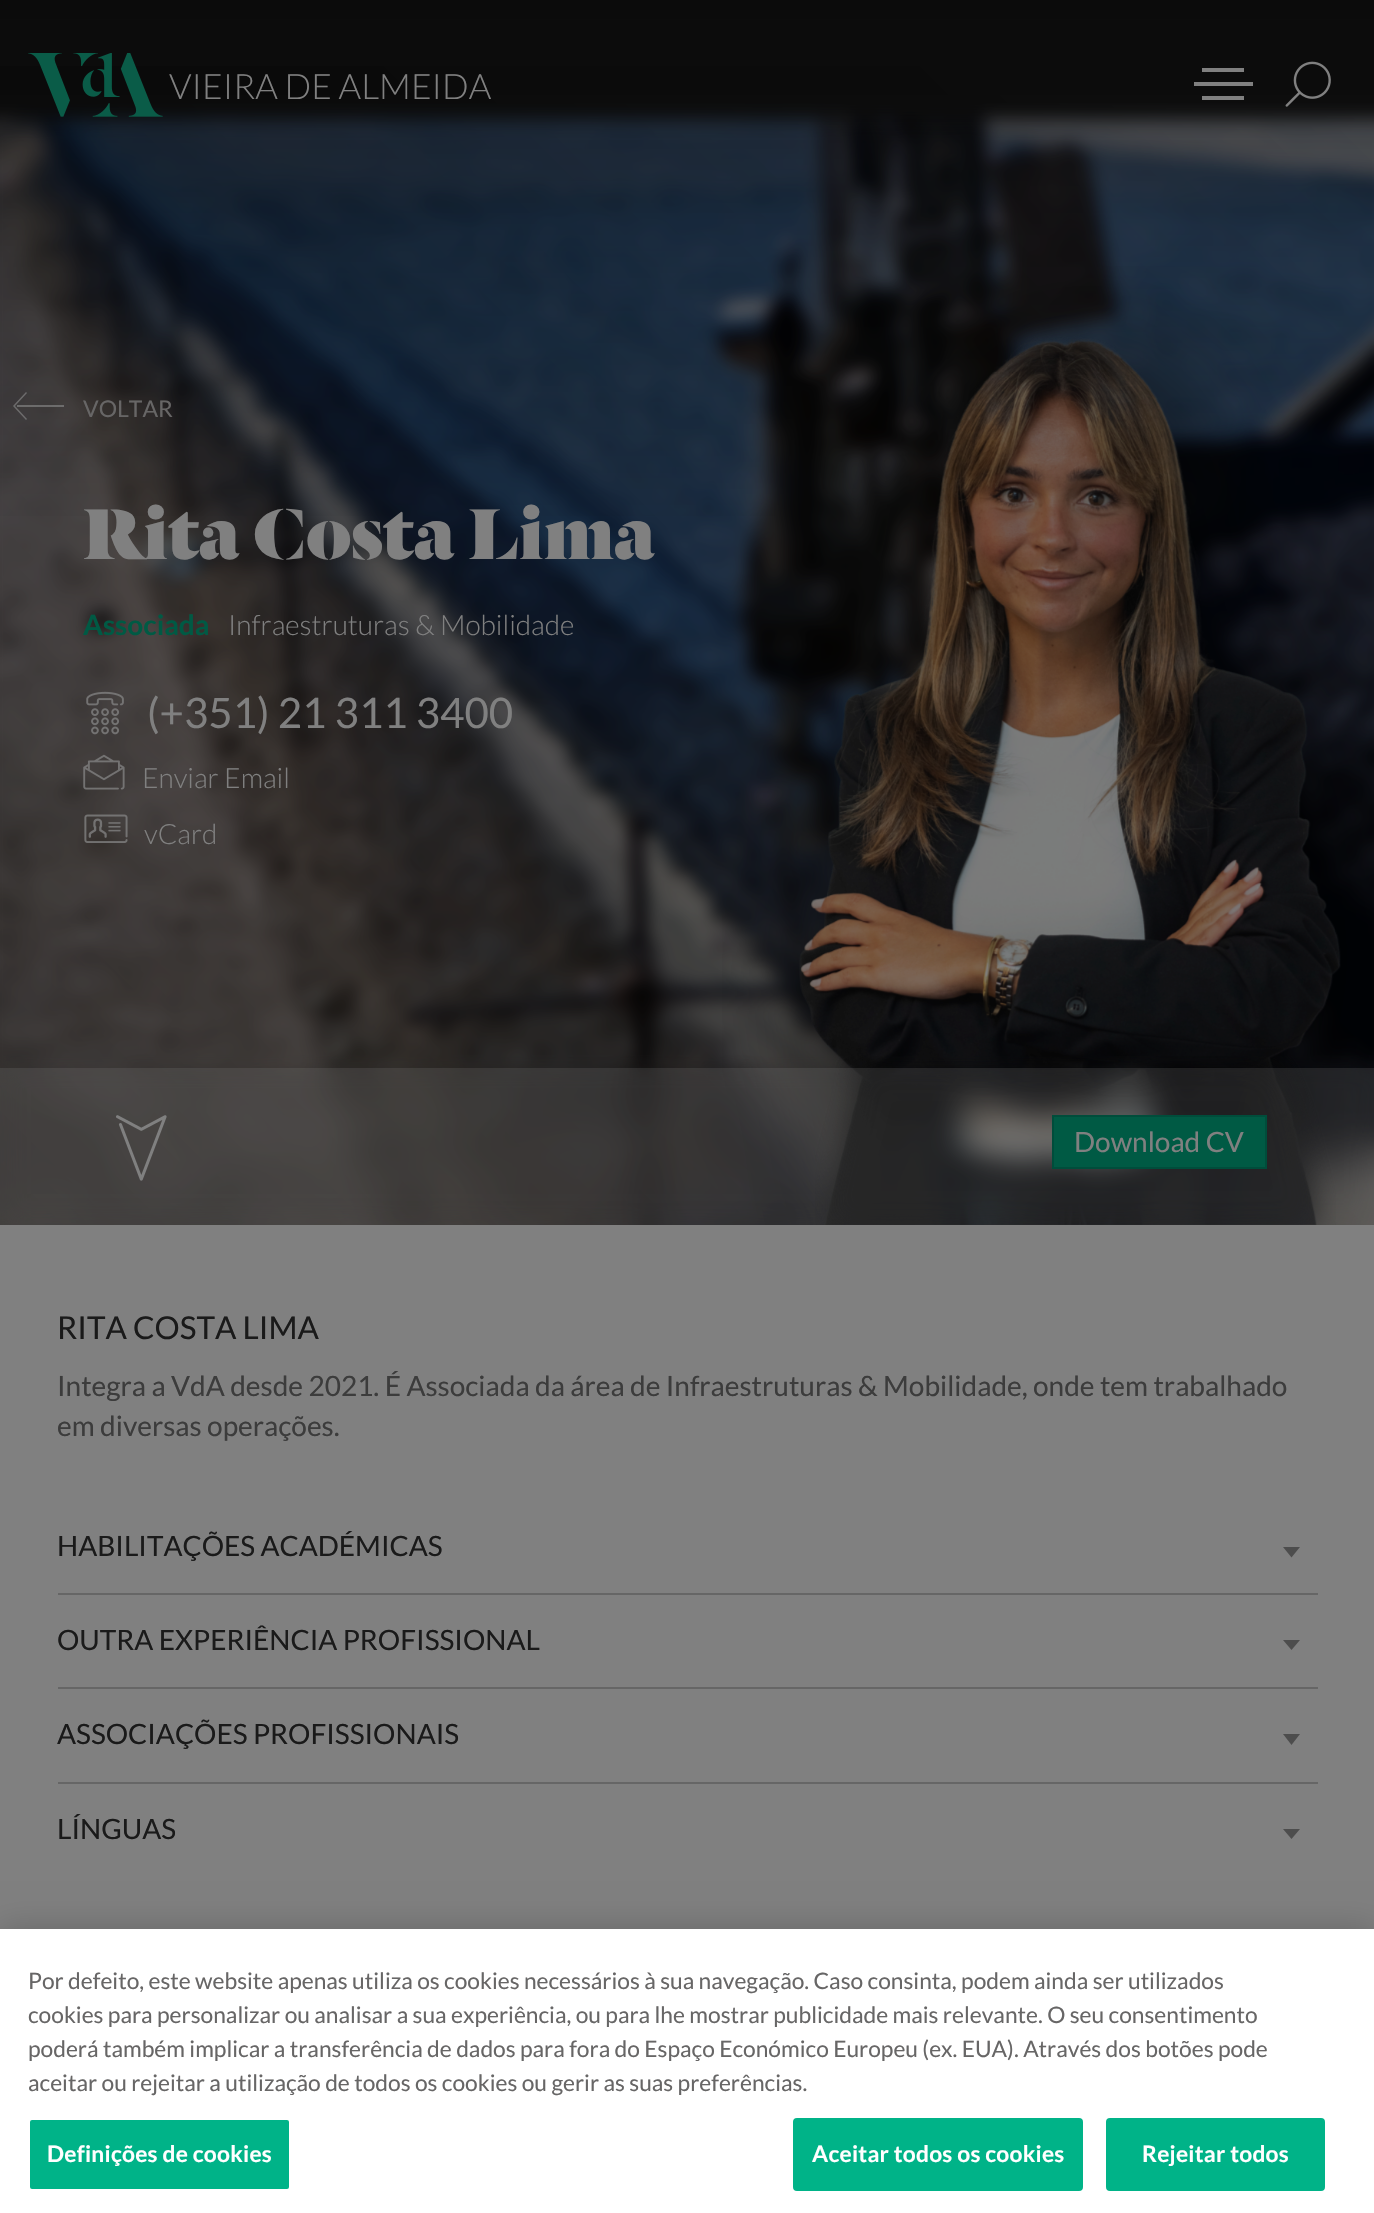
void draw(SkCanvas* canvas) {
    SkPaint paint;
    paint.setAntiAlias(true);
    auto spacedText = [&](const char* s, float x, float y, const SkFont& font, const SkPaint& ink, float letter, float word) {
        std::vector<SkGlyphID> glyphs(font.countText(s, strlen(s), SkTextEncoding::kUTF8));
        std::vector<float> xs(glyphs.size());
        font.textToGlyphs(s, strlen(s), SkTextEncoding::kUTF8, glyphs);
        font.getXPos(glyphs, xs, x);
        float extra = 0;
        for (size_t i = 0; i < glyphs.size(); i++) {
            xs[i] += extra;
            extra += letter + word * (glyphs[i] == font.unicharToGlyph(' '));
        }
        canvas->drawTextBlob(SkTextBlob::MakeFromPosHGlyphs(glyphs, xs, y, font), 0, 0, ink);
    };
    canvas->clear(0xFF808080);
    paint.setColor(0xFF121212);
    canvas->drawRect(SkRect::MakeXYWH(0, 0, 1374, 1225), paint);
    canvas->drawImageRect(SkImages::DeferredFromEncodedData(SkData::MakeFromFileName("img3.png")), SkRect::MakeXYWH(0, 103, 1374, 1122), SkSamplingOptions());
    {
        const SkColor colors[] = {0x66000000, 0x00000000};
        const float stops[] = {0, 1};
        const SkPoint ends[] = {{688, 0}, {688, 551}};
        paint.setShader(SkGradientShader::MakeLinear(ends, colors, stops, 2, SkTileMode::kClamp));
        paint.setAlpha(255);
    }
    canvas->drawRect(SkRect::MakeXYWH(0, 0, 1374, 516), paint);
    canvas->drawImageRect(SkImages::DeferredFromEncodedData(SkData::MakeFromFileName("img4.png")), SkRect::MakeXYWH(0, 1055, 1374, 170), SkSamplingOptions());
    {
        const SkColor colors[] = {0x66000000, 0x00000000};
        const float stops[] = {0, 1};
        const SkPoint ends[] = {{38, 1263}, {1338, -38}};
        paint.setShader(SkGradientShader::MakeLinear(ends, colors, stops, 2, SkTileMode::kClamp));
        paint.setAlpha(255);
    }
    canvas->drawRect(SkRect::MakeXYWH(0, 66, 1374, 1159), paint);
    canvas->drawImageRect(SkImages::DeferredFromEncodedData(SkData::MakeFromFileName("img1.png")), SkRect::MakeXYWH(28, 53, 135, 64), SkSamplingOptions());
    SkFont font1(fontMgr->matchFamilyStyle("Lato", SkFontStyle(300, SkFontStyle::kNormal_Width, SkFontStyle::kUpright_Slant)), 35);
    font1.setSubpixel(true);
    paint.setShader(nullptr);
    paint.setColor(0xFF808080);
    canvas->drawString("VIEIRA DE ALMEIDA", 169, 99, font1, paint);
    canvas->drawRect(SkRect::MakeXYWH(1202, 68, 42, 4), paint);
    canvas->drawRect(SkRect::MakeXYWH(1194, 82, 59, 4), paint);
    canvas->drawRect(SkRect::MakeXYWH(1202, 96, 42, 4), paint);
    canvas->drawImageRect(SkImages::DeferredFromEncodedData(SkData::MakeFromFileName("img2.png")), SkRect::MakeXYWH(1285, 61, 46, 46), SkSamplingOptions());
    paint.setColor(0xB3808080);
    canvas->drawPath(SkPathBuilder(SkPathFillType::kEvenOdd).moveTo(13, 406).lineTo(26, 392).lineTo(27, 393).lineTo(15, 406).lineTo(27, 419).lineTo(26, 420).close().moveTo(64, 407).lineTo(17, 407).lineTo(17, 405).lineTo(64, 405).close().detach(), paint);
    SkFont font2(fontMgr->matchFamilyStyle("Lato", SkFontStyle::Normal()), 23);
    font2.setSubpixel(true);
    paint.setColor(0xFF676666);
    canvas->drawString("VOLTAR", 83, 417, font2, paint);
    SkFont font3(fontMgr->matchFamilyStyle("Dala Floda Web", SkFontStyle(800, SkFontStyle::kNormal_Width, SkFontStyle::kUpright_Slant)), 78.75f);
    font3.setSubpixel(true);
    paint.setColor(0xFF808080);
    canvas->drawString("Rita Costa Lima", 83, 559, font3, paint);
    SkFont font4(fontMgr->matchFamilyStyle("Lato", SkFontStyle::Bold()), 28);
    font4.setSubpixel(true);
    paint.setColor(0xFF005A44);
    canvas->drawString("Associada", 83, 635, font4, paint);
    SkFont font5(fontMgr->matchFamilyStyle("Lato", SkFontStyle(300, SkFontStyle::kNormal_Width, SkFontStyle::kUpright_Slant)), 28);
    font5.setSubpixel(true);
    paint.setColor(0xFF808080);
    canvas->drawString("Infraestruturas & Mobilidade", 228, 635, font5, paint);
    canvas->drawImageRect(SkImages::DeferredFromEncodedData(SkData::MakeFromFileName("img5.png")), SkRect::MakeXYWH(86, 691, 38, 44), SkSamplingOptions());
    SkFont font6(fontMgr->matchFamilyStyle("Lato", SkFontStyle::Normal()), 42);
    font6.setSubpixel(true);
    canvas->drawString("(+351) 21 311 3400", 147, 728, font6, paint);
    canvas->drawImageRect(SkImages::DeferredFromEncodedData(SkData::MakeFromFileName("img6.png")), SkRect::MakeXYWH(83, 754, 42, 36), SkSamplingOptions());
    canvas->drawString("Enviar Email", 142, 788, font5, paint);
    canvas->drawImageRect(SkImages::DeferredFromEncodedData(SkData::MakeFromFileName("img7.png")), SkRect::MakeXYWH(84, 814, 44, 29), SkSamplingOptions());
    canvas->drawString("vCard", 144, 844, font5, paint);
    canvas->drawImageRect(SkImages::DeferredFromEncodedData(SkData::MakeFromFileName("img8.png")), SkRect::MakeXYWH(722, 266, 652, 959), SkSamplingOptions());
    canvas->drawImageRect(SkImages::DeferredFromEncodedData(SkData::MakeFromFileName("img9.png")), SkRect::MakeXYWH(815, 1056, 521, 169), SkSamplingOptions());
    paint.setColor(0x33808080);
    canvas->drawRect(SkRect::MakeXYWH(0, 1068, 1374, 157), paint);
    canvas->drawImageRect(SkImages::DeferredFromEncodedData(SkData::MakeFromFileName("img10.png")), SkRect::MakeXYWH(116, 1115, 51, 66), SkSamplingOptions());
    paint.setColor(0xFF005A44);
    canvas->drawRect(SkRect::MakeXYWH(1053, 1116, 213, 52), paint);
    paint.setStyle(SkPaint::kStroke_Style);
    paint.setStrokeWidth(2);
    paint.setColor(0xFF004D3B);
    canvas->drawRect(SkRect::MakeXYWH(1053, 1116, 213, 52), paint);
    SkFont font7(fontMgr->matchFamilyStyle("Lato", SkFontStyle::Normal()), 28);
    font7.setSubpixel(true);
    paint.setStyle(SkPaint::kFill_Style);
    paint.setColor(0xFF808080);
    canvas->drawString("Download CV", 1074, 1152, font7, paint);
    SkFont font8(fontMgr->matchFamilyStyle("Lato", SkFontStyle::Normal()), 31.5f);
    font8.setSubpixel(true);
    paint.setColor(0xFF1A1A1A);
    canvas->drawString("RITA COSTA LIMA", 57, 1339, font8, paint);
    paint.setColor(0xFF3C3C3C);
    canvas->drawString("Integra a VdA desde 2021. É Associada da área de Infraestruturas & Mobilidade, onde tem trabalhado", 57, 1396, font7, paint);
    canvas->drawString("em diversas operações.", 57, 1436, font7, paint);
    paint.setColor(0xFF1A1A1A);
    canvas->drawString("HABILITAÇÕES ACADÉMICAS", 57, 1556, font7, paint);
    paint.setColor(0xFF4D4D4D);
    canvas->drawPath(SkPathBuilder().moveTo(1283, 1547).lineTo(1300, 1547).lineTo(1291.5f, 1557.5f).close().detach(), paint);
    paint.setColor(0xFF666666);
    canvas->drawRect(SkRect::MakeXYWH(58, 1593, 1260, 2), paint);
    paint.setColor(0xFF1A1A1A);
    canvas->drawString("OUTRA EXPERIÊNCIA PROFISSIONAL", 57, 1650, font7, paint);
    paint.setColor(0xFF4D4D4D);
    canvas->drawPath(SkPathBuilder().moveTo(1283, 1640).lineTo(1300, 1640).lineTo(1291.5f, 1650).close().detach(), paint);
    paint.setColor(0xFF666666);
    canvas->drawRect(SkRect::MakeXYWH(58, 1687, 1260, 2), paint);
    paint.setColor(0xFF1A1A1A);
    canvas->drawString("ASSOCIAÇÕES PROFISSIONAIS", 57, 1744, font7, paint);
    paint.setColor(0xFF4D4D4D);
    canvas->drawPath(SkPathBuilder().moveTo(1283, 1734).lineTo(1300, 1734).lineTo(1291.5f, 1745).close().detach(), paint);
    paint.setColor(0xFF666666);
    canvas->drawRect(SkRect::MakeXYWH(58, 1782, 1260, 2), paint);
    paint.setColor(0xFF1A1A1A);
    canvas->drawString("LÍNGUAS", 57, 1839, font7, paint);
    paint.setColor(0xFF4D4D4D);
    canvas->drawPath(SkPathBuilder().moveTo(1283, 1829).lineTo(1300, 1829).lineTo(1291.5f, 1839).close().detach(), paint);
    paint.setColor(0x33000000);
    paint.setMaskFilter(SkMaskFilter::MakeBlur(kNormal_SkBlurStyle, 16));
    canvas->drawRect(SkRect::MakeXYWH(0, 1929, 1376, 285), paint);
    paint.setMaskFilter(nullptr);
    paint.setColor(0xFFFFFFFF);
    canvas->drawRect(SkRect::MakeXYWH(0, 1929, 1374, 284), paint);
    SkFont font9(fontMgr->matchFamilyStyle("Lato", SkFontStyle::Normal()), 22.75f);
    font9.setSubpixel(true);
    paint.setColor(0xFF676666);
    canvas->drawString("Por defeito, este website apenas utiliza os cookies necessários à sua navegação. Caso consinta, podem ainda ser utilizados", 28, 1989, font9, paint);
    canvas->drawString("cookies para personalizar ou analisar a sua experiência, ou para lhe mostrar publicidade mais relevante. O seu consentimento", 28, 2023, font9, paint);
    canvas->drawString("poderá também implicar a transferência de dados para fora do Espaço Económico Europeu (ex. EUA). Através dos botões pode", 28, 2057, font9, paint);
    canvas->drawString("aceitar ou rejeitar a utilização de todos os cookies ou gerir as suas preferências.", 28, 2091, font9, paint);
    paint.setColor(0xFF00B388);
    canvas->drawRoundRect(SkRect::MakeXYWH(29, 2119, 261, 71), 3, 3, paint);
    paint.setStyle(SkPaint::kStroke_Style);
    paint.setColor(0xFFFFFFFF);
    canvas->drawRoundRect(SkRect::MakeXYWH(29, 2119, 261, 71), 3, 3, paint);
    SkFont font10(fontMgr->matchFamilyStyle("Lato", SkFontStyle::Bold()), 22.75f);
    font10.setSubpixel(true);
    paint.setStyle(SkPaint::kFill_Style);
    spacedText("Definições de cookies", 47, 2162, font10, paint, 0.25f, 0);
    paint.setColor(0xFF00B388);
    canvas->drawRoundRect(SkRect::MakeXYWH(794, 2119, 288, 71), 3, 3, paint);
    paint.setStyle(SkPaint::kStroke_Style);
    canvas->drawRoundRect(SkRect::MakeXYWH(794, 2119, 288, 71), 3, 3, paint);
    paint.setStyle(SkPaint::kFill_Style);
    paint.setColor(0xFFFFFFFF);
    spacedText("Aceitar todos os cookies", 812, 2162, font10, paint, 0.25f, 0);
    paint.setColor(0xFF00B388);
    canvas->drawRoundRect(SkRect::MakeXYWH(1107, 2119, 217, 71), 3, 3, paint);
    paint.setStyle(SkPaint::kStroke_Style);
    canvas->drawRoundRect(SkRect::MakeXYWH(1107, 2119, 217, 71), 3, 3, paint);
    paint.setStyle(SkPaint::kFill_Style);
    paint.setColor(0xFFFFFFFF);
    spacedText("Rejeitar todos", 1142, 2162, font10, paint, 0.25f, 0);
}
